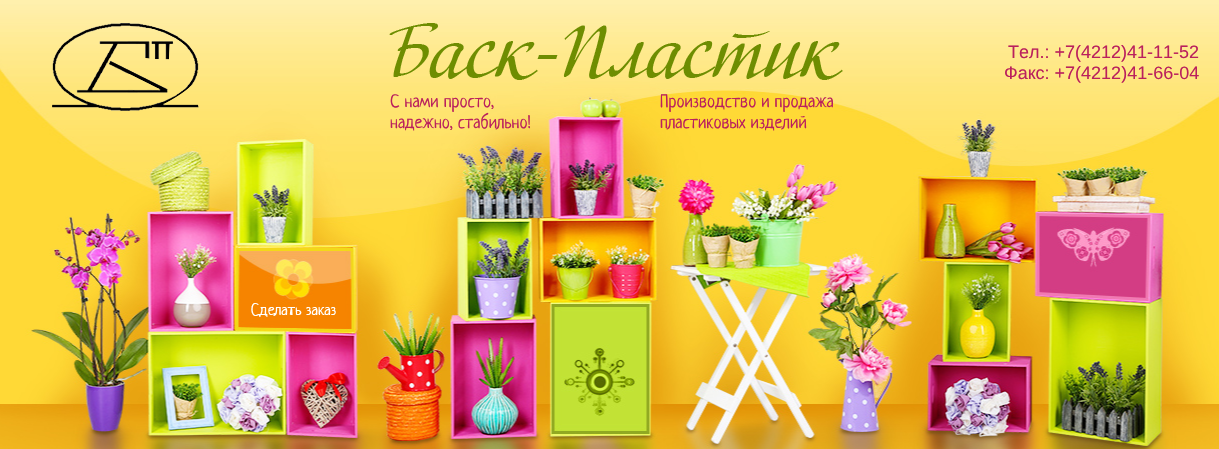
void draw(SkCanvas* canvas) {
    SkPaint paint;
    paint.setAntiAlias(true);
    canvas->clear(0xFFFFFFFF);
    canvas->drawImageRect(SkImages::DeferredFromEncodedData(SkData::MakeFromFileName("img1.png")), SkRect::MakeXYWH(0, 0, 1219, 449), SkSamplingOptions());
    canvas->drawImageRect(SkImages::DeferredFromEncodedData(SkData::MakeFromFileName("img2.png")), SkRect::MakeXYWH(52, 23, 147, 88), SkSamplingOptions());
    canvas->drawImageRect(SkImages::DeferredFromEncodedData(SkData::MakeFromFileName("img3.png")), SkRect::MakeXYWH(389, 23, 454, 57), SkSamplingOptions());
    SkFont font1(fontMgr->matchFamilyStyle("Liberation Sans", SkFontStyle::Normal()), 18);
    font1.setSubpixel(true);
    paint.setColor(0xFFBA205D);
    canvas->drawString("Тел.: +7(4212)41-11-52", 1008, 58, font1, paint);
    canvas->drawString("Факс: +7(4212)41-66-04", 1004, 79, font1, paint);
    SkFont font2(fontMgr->matchFamilyStyle("Neucha", SkFontStyle::Normal()), 18);
    font2.setSubpixel(true);
    canvas->drawString("С нами просто,", 390, 107, font2, paint);
    canvas->drawString("надежно, стабильно!", 390, 128, font2, paint);
    canvas->drawString("Производство и продажа", 660, 107, font2, paint);
    canvas->drawString("пластиковых изделий", 660, 128, font2, paint);
    canvas->drawImageRect(SkImages::DeferredFromEncodedData(SkData::MakeFromFileName("img4.png")), SkRect::MakeXYWH(251, 303, 85, 14), SkSamplingOptions());
}
